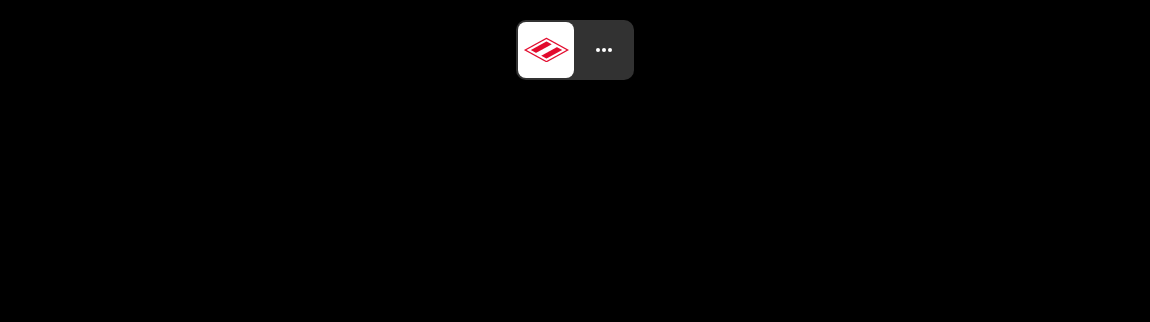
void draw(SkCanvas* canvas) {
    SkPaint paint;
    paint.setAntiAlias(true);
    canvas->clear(0xFF000000);
    paint.setColor(0xFF323232);
    canvas->drawRoundRect(SkRect::MakeXYWH(516, 20, 118, 60), 10, 10, paint);
    paint.setColor(0xFFFFFFFF);
    canvas->drawRoundRect(SkRect::MakeXYWH(518, 22, 56, 56), 8, 8, paint);
    canvas->drawImageRect(SkImages::DeferredFromEncodedData(SkData::MakeFromFileName("img1.png")), SkRect::MakeXYWH(524, 37, 45, 25), SkSamplingOptions());
    canvas->drawCircle(598, 50, 2, paint);
    canvas->drawCircle(604, 50, 2, paint);
    canvas->drawCircle(610, 50, 2, paint);
}
